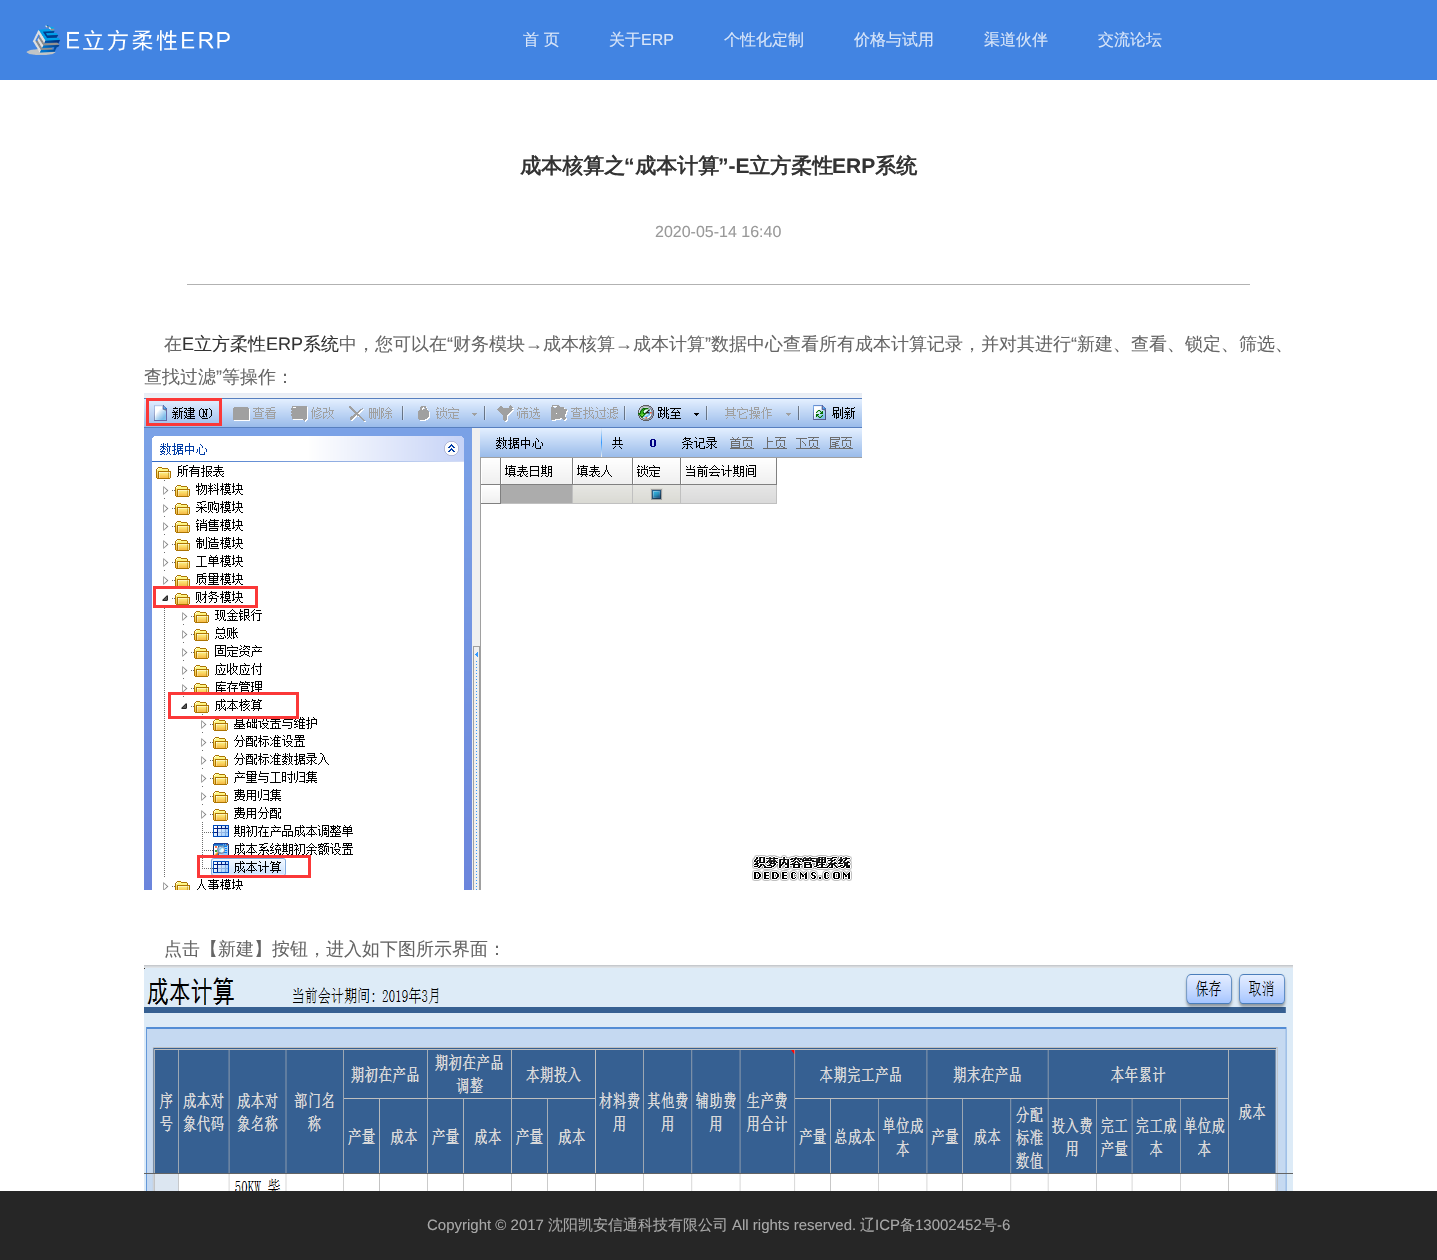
void draw(SkCanvas* canvas) {
    SkPaint paint;
    paint.setAntiAlias(true);
    canvas->clear(0xFFFFFFFF);
    paint.setColor(0xFF4284E2);
    canvas->drawRect(SkRect::MakeXYWH(0, 0, 1437, 80), paint);
    canvas->drawImageRect(SkImages::DeferredFromEncodedData(SkData::MakeFromFileName("img1.png")), SkRect::MakeXYWH(26, 25, 204, 30), SkSamplingOptions());
    SkFont font1(fontMgr->matchFamilyStyle("WenQuanYi Zen Hei", SkFontStyle(500, SkFontStyle::kNormal_Width, SkFontStyle::kUpright_Slant)), 16);
    font1.setSubpixel(true);
    paint.setColor(0xFFD9E6F9);
    canvas->drawString("首 页", 523, 45, font1, paint);
    canvas->drawString("关于", 609, 45, font1, paint);
    SkFont font2(fontMgr->matchFamilyStyle("Liberation Sans", SkFontStyle::Normal()), 16);
    font2.setSubpixel(true);
    canvas->drawString("ERP", 641, 45, font2, paint);
    canvas->drawString("个性化定制", 724, 45, font1, paint);
    canvas->drawString("价格与试用", 854, 45, font1, paint);
    canvas->drawString("渠道伙伴", 984, 45, font1, paint);
    canvas->drawString("交流论坛", 1098, 45, font1, paint);
    SkFont font3(fontMgr->matchFamilyStyle("WenQuanYi Zen Hei", SkFontStyle::Bold()), 21);
    font3.setSubpixel(true);
    paint.setColor(0xFF333333);
    canvas->drawString("成本核算之", 520, 173, font3, paint);
    SkFont font4(fontMgr->matchFamilyStyle("Liberation Sans", SkFontStyle::Bold()), 21);
    font4.setSubpixel(true);
    canvas->drawString("“", 624, 173, font4, paint);
    canvas->drawString("成本计算", 635, 173, font3, paint);
    canvas->drawString("”-E", 718, 173, font4, paint);
    canvas->drawString("立方柔性", 749, 173, font3, paint);
    canvas->drawString("ERP", 832, 173, font4, paint);
    canvas->drawString("系统", 875, 173, font3, paint);
    paint.setColor(0xFF999999);
    canvas->drawString("2020-05-14 16:40", 655, 237, font2, paint);
    paint.setColor(0xFFB2B2B2);
    canvas->drawRect(SkRect::MakeXYWH(187, 284, 1063, 1), paint);
    SkFont font5(fontMgr->matchFamilyStyle("WenQuanYi Zen Hei", SkFontStyle(500, SkFontStyle::kNormal_Width, SkFontStyle::kUpright_Slant)), 18);
    font5.setSubpixel(true);
    paint.setColor(0xFF666666);
    canvas->drawString("在", 164, 350, font5, paint);
    SkFont font6(fontMgr->matchFamilyStyle("Liberation Sans", SkFontStyle::Normal()), 18);
    font6.setSubpixel(true);
    paint.setColor(0xFF333333);
    canvas->drawString("E", 182, 350, font6, paint);
    canvas->drawString("立方柔性", 194, 350, font5, paint);
    canvas->drawString("ERP", 266, 350, font6, paint);
    canvas->drawString("系统", 303, 350, font5, paint);
    paint.setColor(0xFF666666);
    canvas->drawString("中，您可以在", 339, 350, font5, paint);
    canvas->drawString("“", 447, 350, font6, paint);
    canvas->drawString("财务模块", 453, 350, font5, paint);
    canvas->drawString("成本核算", 543, 350, font5, paint);
    canvas->drawString("成本计算", 633, 350, font5, paint);
    canvas->drawString("”", 705, 350, font6, paint);
    canvas->drawString("数据中心查看所有成本计算记录，并对其进行", 711, 350, font5, paint);
    canvas->drawString("“", 1071, 350, font6, paint);
    canvas->drawString("新建、查看、锁定、筛选、", 1077, 350, font5, paint);
    canvas->drawString("→", 525, 350, font6, paint);
    canvas->drawString("→", 615, 350, font6, paint);
    canvas->drawString("查找过滤", 144, 383, font5, paint);
    canvas->drawString("”", 216, 383, font6, paint);
    canvas->drawString("等操作：", 222, 383, font5, paint);
    canvas->drawImageRect(SkImages::DeferredFromEncodedData(SkData::MakeFromFileName("img2.png")), SkRect::MakeXYWH(144, 393, 718, 497), SkSamplingOptions());
    canvas->drawString("点击【新建】按钮，进入如下图所示界面：", 164, 955, font5, paint);
    canvas->drawImageRect(SkImages::DeferredFromEncodedData(SkData::MakeFromFileName("img3.png")), SkRect::MakeXYWH(144, 965, 1149, 226), SkSamplingOptions());
    paint.setColor(0xFF262626);
    canvas->drawRect(SkRect::MakeXYWH(0, 1191, 1437, 69), paint);
    SkFont font7(fontMgr->matchFamilyStyle("Liberation Sans", SkFontStyle::Normal()), 15);
    font7.setSubpixel(true);
    paint.setColor(0xFFA8A8A8);
    canvas->drawString("Copyright © 2017", 427, 1230, font7, paint);
    SkFont font8(fontMgr->matchFamilyStyle("WenQuanYi Zen Hei", SkFontStyle(500, SkFontStyle::kNormal_Width, SkFontStyle::kUpright_Slant)), 15);
    font8.setSubpixel(true);
    canvas->drawString("沈阳凯安信通科技有限公司", 548, 1230, font8, paint);
    canvas->drawString("All rights reserved.", 732, 1230, font7, paint);
    canvas->drawString("辽", 860, 1230, font8, paint);
    canvas->drawString("ICP", 875, 1230, font7, paint);
    canvas->drawString("备", 900, 1230, font8, paint);
    canvas->drawString("13002452", 915, 1230, font7, paint);
    canvas->drawString("号", 982, 1230, font8, paint);
    canvas->drawString("-6", 997, 1230, font7, paint);
}
